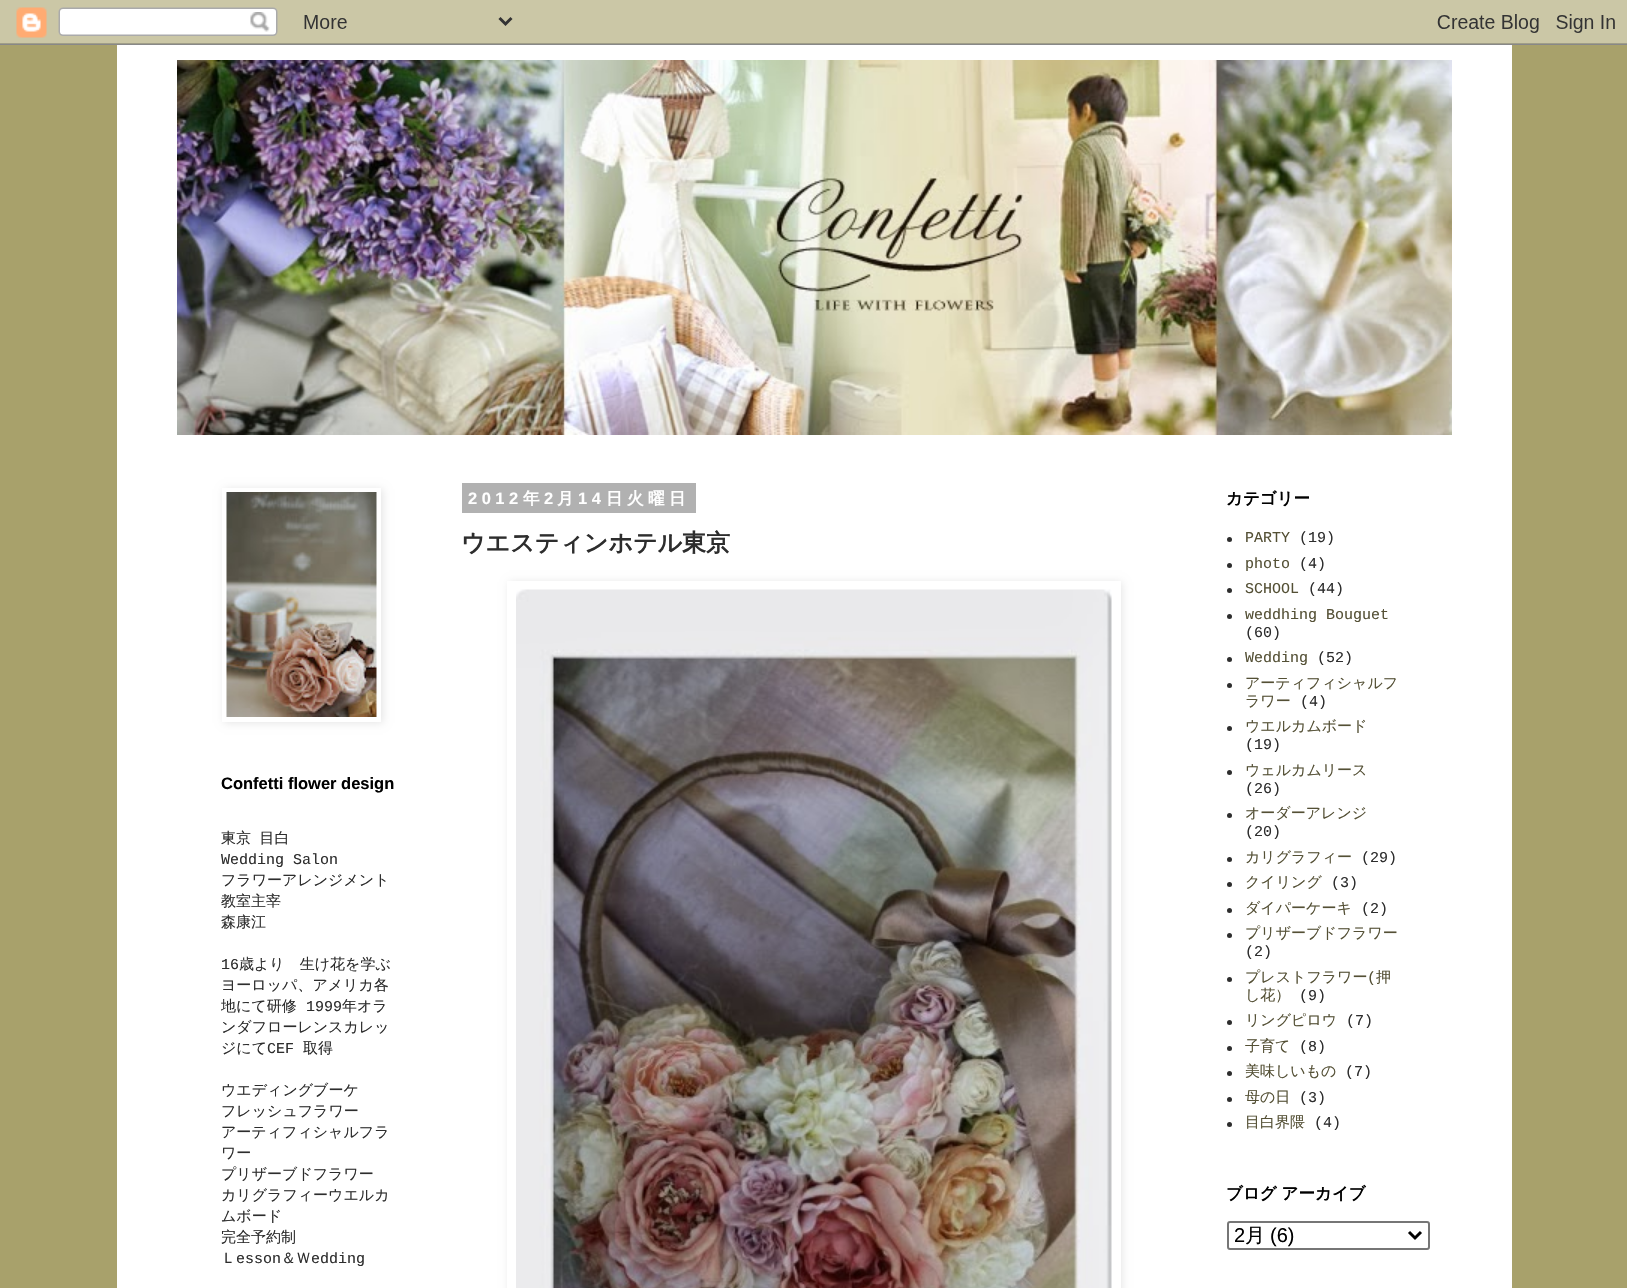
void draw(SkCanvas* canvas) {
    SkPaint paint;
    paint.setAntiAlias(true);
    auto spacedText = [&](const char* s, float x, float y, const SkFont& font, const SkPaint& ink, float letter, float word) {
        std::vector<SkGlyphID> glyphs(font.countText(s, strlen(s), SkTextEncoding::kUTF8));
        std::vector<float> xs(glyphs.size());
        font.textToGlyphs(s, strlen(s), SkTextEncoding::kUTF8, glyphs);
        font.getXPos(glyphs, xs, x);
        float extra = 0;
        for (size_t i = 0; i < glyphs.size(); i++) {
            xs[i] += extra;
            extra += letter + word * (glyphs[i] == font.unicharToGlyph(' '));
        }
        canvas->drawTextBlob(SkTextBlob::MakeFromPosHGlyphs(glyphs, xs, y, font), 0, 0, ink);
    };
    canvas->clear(0xFFA8A16B);
    canvas->drawImageRect(SkImages::DeferredFromEncodedData(SkData::MakeFromFileName("img1.png")), SkRect::MakeXYWH(0, 0, 1627, 45), SkSamplingOptions());
    paint.setColor(0xFFFFFFFF);
    canvas->drawRect(SkRect::MakeXYWH(117, 45, 1395, 1243), paint);
    canvas->drawImageRect(SkImages::DeferredFromEncodedData(SkData::MakeFromFileName("img2.png")), SkRect::MakeXYWH(177, 60, 1275, 375), SkSamplingOptions());
    paint.setColor(0x1A000000);
    paint.setMaskFilter(SkMaskFilter::MakeBlur(kNormal_SkBlurStyle, 4));
    canvas->drawRect(SkRect::MakeXYWH(224, 489, 159, 234), paint);
    paint.setMaskFilter(nullptr);
    paint.setColor(0xFFFFFFFF);
    canvas->drawRect(SkRect::MakeXYWH(222, 488, 159, 234), paint);
    canvas->drawImageRect(SkImages::DeferredFromEncodedData(SkData::MakeFromFileName("img3.png")), SkRect::MakeXYWH(226, 492, 151, 225), SkSamplingOptions());
    SkFont font1(fontMgr->matchFamilyStyle("Liberation Sans", SkFontStyle::Bold()), 16.5f);
    font1.setSubpixel(true);
    paint.setColor(0xFF000000);
    canvas->drawString("Confetti flower design", 221, 789, font1, paint);
    SkFont font2(fontMgr->matchFamilyStyle("WenQuanYi Zen Hei", SkFontStyle(500, SkFontStyle::kNormal_Width, SkFontStyle::kUpright_Slant)), 15);
    font2.setSubpixel(true);
    paint.setColor(0xFF2D2D2D);
    spacedText("東京 目白", 221, 843, font2, paint, 0, 4);
    SkFont font3(fontMgr->matchFamilyStyle("Liberation Mono", SkFontStyle::Normal()), 15);
    font3.setSubpixel(true);
    canvas->drawString("Wedding Salon", 221, 864, font3, paint);
    canvas->drawString("フラワーアレンジメント", 221, 885, font2, paint);
    canvas->drawString("教室主宰", 221, 906, font2, paint);
    canvas->drawString("森康江", 221, 927, font2, paint);
    canvas->drawString("16", 221, 969, font3, paint);
    canvas->drawString("歳より　生け花を学ぶ", 239, 969, font2, paint);
    canvas->drawString("ヨーロッパ、アメリカ各", 221, 990, font2, paint);
    canvas->drawString("地にて研修", 221, 1011, font2, paint);
    canvas->drawString("1999", 306, 1011, font3, paint);
    canvas->drawString("年オラ", 342, 1011, font2, paint);
    canvas->drawString("ンダフローレンスカレッ", 221, 1032, font2, paint);
    canvas->drawString("ジにて", 221, 1053, font2, paint);
    canvas->drawString("CEF", 267, 1053, font3, paint);
    canvas->drawString("取得", 303, 1053, font2, paint);
    canvas->drawString("ウエディングブーケ", 221, 1095, font2, paint);
    canvas->drawString("フレッシュフラワー", 221, 1116, font2, paint);
    canvas->drawString("アーティフィシャルフラ", 221, 1137, font2, paint);
    canvas->drawString("ワー", 221, 1158, font2, paint);
    canvas->drawString("プリザーブドフラワー", 221, 1179, font2, paint);
    canvas->drawString("カリグラフィーウエルカ", 221, 1200, font2, paint);
    canvas->drawString("ムボード", 221, 1221, font2, paint);
    canvas->drawString("完全予約制", 221, 1242, font2, paint);
    canvas->drawString("Ｌ", 221, 1263, font2, paint);
    canvas->drawString("esson", 236, 1263, font3, paint);
    canvas->drawString("＆Ｗ", 281, 1263, font2, paint);
    canvas->drawString("edding", 311, 1263, font3, paint);
    paint.setColor(0xFFB1B1B1);
    canvas->drawRect(SkRect::MakeXYWH(462, 483, 234, 30), paint);
    paint.setColor(0xFFFFFFFF);
    spacedText("2012", 468, 504, font1, paint, 4.5f, 0);
    SkFont font4(fontMgr->matchFamilyStyle("WenQuanYi Zen Hei", SkFontStyle::Bold()), 16.5f);
    font4.setSubpixel(true);
    spacedText("年", 523, 504, font4, paint, 4.5f, 0);
    spacedText("2", 544, 504, font1, paint, 4.5f, 0);
    spacedText("月", 557, 504, font4, paint, 4.5f, 0);
    spacedText("14", 578, 504, font1, paint, 4.5f, 0);
    spacedText("日火曜日", 606, 504, font4, paint, 4.5f, 0);
    SkFont font5(fontMgr->matchFamilyStyle("WenQuanYi Zen Hei", SkFontStyle::Bold()), 24);
    font5.setSubpixel(true);
    paint.setColor(0xFF2D2D2D);
    canvas->drawString("ウエスティンホテル東京", 461, 551, font5, paint);
    paint.setColor(0x1A000000);
    paint.setMaskFilter(SkMaskFilter::MakeBlur(kNormal_SkBlurStyle, 4));
    canvas->drawRect(SkRect::MakeXYWH(509, 582, 613, 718), paint);
    paint.setMaskFilter(nullptr);
    paint.setColor(0xFFFFFFFF);
    canvas->drawRect(SkRect::MakeXYWH(507, 581, 614, 707), paint);
    canvas->drawImageRect(SkImages::DeferredFromEncodedData(SkData::MakeFromFileName("img4.png")), SkRect::MakeXYWH(516, 589, 596, 699), SkSamplingOptions());
    paint.setColor(0xFF000000);
    canvas->drawString("カテゴリー", 1226, 504, font4, paint);
    paint.setColor(0xFF2D2D2D);
    canvas->drawCircle(1229.5f, 539.5f, 2.5f, paint);
    paint.setColor(0xFF545035);
    canvas->drawString("PARTY", 1245, 542, font3, paint);
    paint.setColor(0xFF2D2D2D);
    canvas->drawString("(19)", 1299, 542, font3, paint);
    canvas->drawCircle(1229.5f, 565.5f, 2.5f, paint);
    paint.setColor(0xFF545035);
    canvas->drawString("photo", 1245, 568, font3, paint);
    paint.setColor(0xFF2D2D2D);
    canvas->drawString("(4)", 1299, 568, font3, paint);
    canvas->drawCircle(1229.5f, 590.5f, 2.5f, paint);
    paint.setColor(0xFF545035);
    canvas->drawString("SCHOOL", 1245, 593, font3, paint);
    paint.setColor(0xFF2D2D2D);
    canvas->drawString("(44)", 1308, 593, font3, paint);
    canvas->drawCircle(1229.5f, 616.5f, 2.5f, paint);
    paint.setColor(0xFF545035);
    canvas->drawString("weddhing Bouguet", 1245, 619, font3, paint);
    paint.setColor(0xFF2D2D2D);
    canvas->drawString("(60)", 1245, 637, font3, paint);
    canvas->drawCircle(1229.5f, 659.5f, 2.5f, paint);
    paint.setColor(0xFF545035);
    canvas->drawString("Wedding", 1245, 662, font3, paint);
    paint.setColor(0xFF2D2D2D);
    canvas->drawString("(52)", 1317, 662, font3, paint);
    canvas->drawCircle(1229.5f, 685.5f, 2.5f, paint);
    paint.setColor(0xFF545035);
    canvas->drawString("アーティフィシャルフ", 1245, 688, font2, paint);
    canvas->drawString("ラワー", 1245, 706, font2, paint);
    paint.setColor(0xFF2D2D2D);
    canvas->drawString("(4)", 1300, 706, font3, paint);
    canvas->drawCircle(1229.5f, 728.5f, 2.5f, paint);
    paint.setColor(0xFF545035);
    canvas->drawString("ウエルカムボード", 1245, 731, font2, paint);
    paint.setColor(0xFF2D2D2D);
    canvas->drawString("(19)", 1245, 749, font3, paint);
    canvas->drawCircle(1229.5f, 772.5f, 2.5f, paint);
    paint.setColor(0xFF545035);
    canvas->drawString("ウェルカムリース", 1245, 775, font2, paint);
    paint.setColor(0xFF2D2D2D);
    canvas->drawString("(26)", 1245, 793, font3, paint);
    canvas->drawCircle(1229.5f, 815.5f, 2.5f, paint);
    paint.setColor(0xFF545035);
    canvas->drawString("オーダーアレンジ", 1245, 818, font2, paint);
    paint.setColor(0xFF2D2D2D);
    canvas->drawString("(20)", 1245, 836, font3, paint);
    canvas->drawCircle(1229.5f, 859.5f, 2.5f, paint);
    paint.setColor(0xFF545035);
    canvas->drawString("カリグラフィー", 1245, 862, font2, paint);
    paint.setColor(0xFF2D2D2D);
    canvas->drawString("(29)", 1361, 862, font3, paint);
    canvas->drawCircle(1229.5f, 884.5f, 2.5f, paint);
    paint.setColor(0xFF545035);
    canvas->drawString("クイリング", 1245, 887, font2, paint);
    paint.setColor(0xFF2D2D2D);
    canvas->drawString("(3)", 1331, 887, font3, paint);
    canvas->drawCircle(1229.5f, 910.5f, 2.5f, paint);
    paint.setColor(0xFF545035);
    canvas->drawString("ダイパーケーキ", 1245, 913, font2, paint);
    paint.setColor(0xFF2D2D2D);
    canvas->drawString("(2)", 1361, 913, font3, paint);
    canvas->drawCircle(1229.5f, 935.5f, 2.5f, paint);
    paint.setColor(0xFF545035);
    canvas->drawString("プリザーブドフラワー", 1245, 938, font2, paint);
    paint.setColor(0xFF2D2D2D);
    canvas->drawString("(2)", 1245, 956, font3, paint);
    canvas->drawCircle(1229.5f, 979.5f, 2.5f, paint);
    paint.setColor(0xFF545035);
    canvas->drawString("プレストフラワー", 1245, 982, font2, paint);
    canvas->drawString("(", 1367, 982, font3, paint);
    canvas->drawString("押", 1376, 982, font2, paint);
    canvas->drawString("し花）", 1245, 1000, font2, paint);
    paint.setColor(0xFF2D2D2D);
    canvas->drawString("(9)", 1299, 1000, font3, paint);
    canvas->drawCircle(1229.5f, 1022.5f, 2.5f, paint);
    paint.setColor(0xFF545035);
    canvas->drawString("リングピロウ", 1245, 1025, font2, paint);
    paint.setColor(0xFF2D2D2D);
    canvas->drawString("(7)", 1346, 1025, font3, paint);
    canvas->drawCircle(1229.5f, 1048.5f, 2.5f, paint);
    paint.setColor(0xFF545035);
    canvas->drawString("子育て", 1245, 1051, font2, paint);
    paint.setColor(0xFF2D2D2D);
    canvas->drawString("(8)", 1299, 1051, font3, paint);
    canvas->drawCircle(1229.5f, 1073.5f, 2.5f, paint);
    paint.setColor(0xFF545035);
    canvas->drawString("美味しいもの", 1245, 1076, font2, paint);
    paint.setColor(0xFF2D2D2D);
    canvas->drawString("(7)", 1345, 1076, font3, paint);
    canvas->drawCircle(1229.5f, 1099.5f, 2.5f, paint);
    paint.setColor(0xFF545035);
    canvas->drawString("母の日", 1245, 1102, font2, paint);
    paint.setColor(0xFF2D2D2D);
    canvas->drawString("(3)", 1299, 1102, font3, paint);
    canvas->drawCircle(1229.5f, 1124.5f, 2.5f, paint);
    paint.setColor(0xFF545035);
    canvas->drawString("目白界隈", 1245, 1127, font2, paint);
    paint.setColor(0xFF2D2D2D);
    canvas->drawString("(4)", 1314, 1127, font3, paint);
    paint.setColor(0xFF000000);
    canvas->drawString("ブログ アーカイブ", 1226, 1199, font4, paint);
    paint.setStyle(SkPaint::kStroke_Style);
    paint.setStrokeWidth(2);
    paint.setColor(0xFF767676);
    canvas->drawRoundRect(SkRect::MakeXYWH(1228, 1222, 201, 27), 2, 2, paint);
    paint.setStrokeWidth(3);
    paint.setColor(0xFF000000);
    canvas->drawPath(SkPathBuilder().moveTo(1409, 1232).lineTo(1415, 1238).lineTo(1421, 1232).detach(), paint);
    SkFont font6(fontMgr->matchFamilyStyle("Liberation Sans", SkFontStyle::Normal()), 20);
    font6.setSubpixel(true);
    paint.setStyle(SkPaint::kFill_Style);
    canvas->drawString("2", 1234, 1242, font6, paint);
    SkFont font7(fontMgr->matchFamilyStyle("WenQuanYi Zen Hei", SkFontStyle(500, SkFontStyle::kNormal_Width, SkFontStyle::kUpright_Slant)), 20);
    font7.setSubpixel(true);
    canvas->drawString("月", 1245, 1242, font7, paint);
    canvas->drawString("(6)", 1270, 1242, font6, paint);
}
